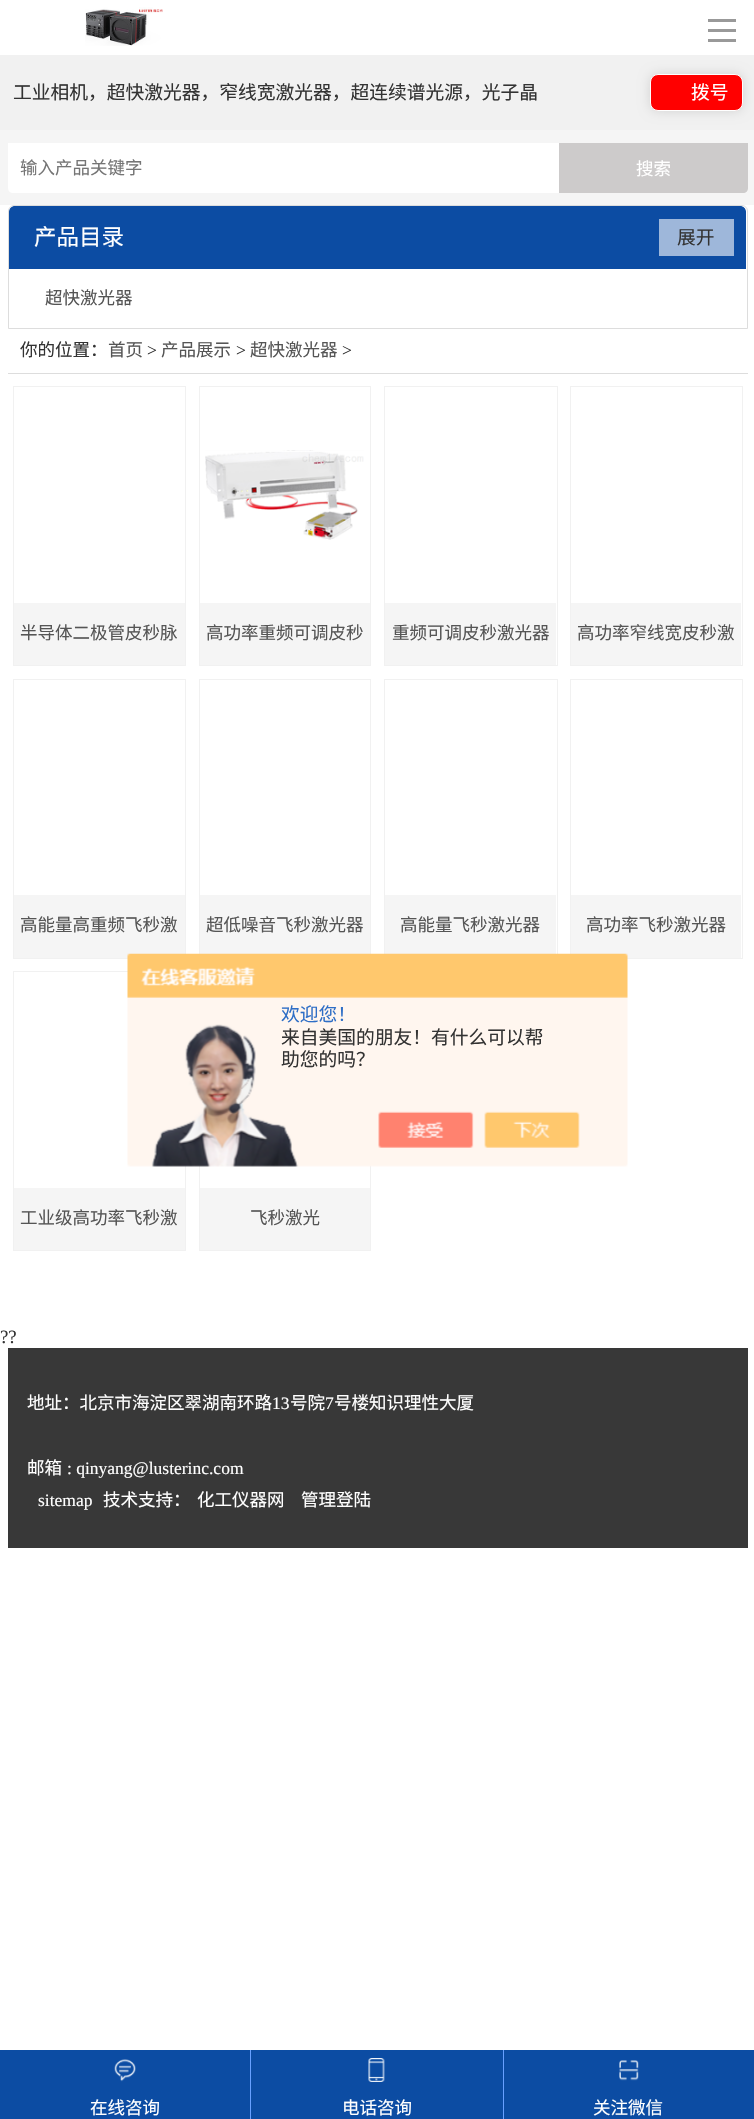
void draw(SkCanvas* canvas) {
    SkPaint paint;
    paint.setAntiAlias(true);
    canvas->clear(0xFFFFFFFF);
    canvas->drawImageRect(SkImages::DeferredFromEncodedData(SkData::MakeFromFileName("img1.png")), SkRect::MakeXYWH(85, 7, 78, 39), SkSamplingOptions());
    paint.setColor(0xFF999999);
    canvas->drawRect(SkRect::MakeXYWH(708, 19, 28, 3), paint);
    canvas->drawRect(SkRect::MakeXYWH(708, 29, 28, 3), paint);
    canvas->drawRect(SkRect::MakeXYWH(708, 39, 28, 3), paint);
    paint.setColor(0xFFF1F1F1);
    canvas->drawRect(SkRect::MakeXYWH(0, 55, 754, 75), paint);
    SkFont font1(fontMgr->matchFamilyStyle("Noto Sans CJK SC", SkFontStyle::Normal()), 18.75f);
    font1.setSubpixel(true);
    paint.setColor(0xFF333333);
    canvas->drawString("工业相机，超快激光器，窄线宽激光器，超连续谱光源，光子晶", 13, 99, font1, paint);
    paint.setColor(0xFFD2D2D2);
    paint.setMaskFilter(SkMaskFilter::MakeBlur(kNormal_SkBlurStyle, 6));
    canvas->drawRoundRect(SkRect::MakeXYWH(650, 74, 93, 37), 8, 8, paint);
    paint.setMaskFilter(nullptr);
    paint.setColor(0xFFFF0000);
    canvas->drawRoundRect(SkRect::MakeXYWH(650.5f, 74.5f, 92, 36), 7.5f, 7.5f, paint);
    paint.setStyle(SkPaint::kStroke_Style);
    paint.setStrokeWidth(1);
    paint.setColor(0xFFFFFFFF);
    canvas->drawRoundRect(SkRect::MakeXYWH(650.5f, 74.5f, 92, 36), 7.5f, 7.5f, paint);
    paint.setStyle(SkPaint::kFill_Style);
    canvas->drawString("拨号", 691, 99, font1, paint);
    paint.setColor(0xFFF5F5F5);
    canvas->drawRect(SkRect::MakeXYWH(0, 130, 754, 75), paint);
    paint.setColor(0xFFFFFFFF);
    canvas->drawPath(SkPathBuilder().moveTo(8, 143).lineTo(559, 143).lineTo(559, 193).lineTo(13, 193).cubicTo(10, 193, 8, 191, 8, 188).close().detach(), paint);
    SkFont font2(fontMgr->matchFamilyStyle("Noto Sans CJK SC", SkFontStyle::Normal()), 17.5f);
    font2.setSubpixel(true);
    paint.setColor(0xFF757575);
    canvas->drawString("输入产品关键字", 20, 174, font2, paint);
    paint.setColor(0xFFCDCBCB);
    canvas->drawPath(SkPathBuilder().moveTo(559, 143).lineTo(748, 143).lineTo(748, 188).cubicTo(748, 191, 746, 193, 743, 193).lineTo(559, 193).close().detach(), paint);
    paint.setColor(0xFFFFFFFF);
    canvas->drawString("搜索", 636, 175, font2, paint);
    paint.setStyle(SkPaint::kStroke_Style);
    paint.setColor(0xFFDDDDDD);
    canvas->drawPath(SkPathBuilder().moveTo(14, 205.5f).lineTo(742, 205.5f).cubicTo(745, 205.5f, 747.5f, 208, 747.5f, 211).lineTo(747.5f, 328.5f).lineTo(8.5f, 328.5f).lineTo(8.5f, 211).cubicTo(8.5f, 208, 11, 205.5f, 14, 205.5f).close().detach(), paint);
    canvas->save();
    canvas->clipPath(SkPathBuilder().moveTo(14, 206).lineTo(741, 206).cubicTo(744, 206, 746, 208, 746, 211).lineTo(746, 328).lineTo(9, 328).lineTo(9, 211).cubicTo(9, 208, 11, 206, 14, 206).close().detach(), true);
    paint.setStyle(SkPaint::kFill_Style);
    paint.setColor(0xFF0C4CA3);
    canvas->drawPath(SkPathBuilder().moveTo(15, 206).lineTo(740, 206).cubicTo(743.5f, 206, 746, 208.5f, 746, 212).lineTo(746, 269).lineTo(9, 269).lineTo(9, 212).cubicTo(9, 208.5f, 11.5f, 206, 15, 206).close().detach(), paint);
    canvas->restore();
    SkFont font3(fontMgr->matchFamilyStyle("Noto Sans CJK SC", SkFontStyle::Normal()), 22.5f);
    font3.setSubpixel(true);
    paint.setColor(0xFFFFFFFF);
    canvas->drawString("产品目录", 34, 245, font3, paint);
    paint.setColor(0xFF555555);
    canvas->drawString("超快激光器", 45, 304, font2, paint);
    paint.setColor(0xFF9EB7DA);
    canvas->drawRect(SkRect::MakeXYWH(659, 219, 75, 37), paint);
    paint.setColor(0xFF333333);
    canvas->drawString("展开", 677, 244, font1, paint);
    paint.setColor(0xFFDDDDDD);
    canvas->drawRect(SkRect::MakeXYWH(8, 373, 740, 1), paint);
    paint.setColor(0xFF333333);
    canvas->drawString("你的位置：", 20, 356, font2, paint);
    paint.setColor(0xFF555555);
    canvas->drawString("首页", 108, 356, font2, paint);
    SkFont font4(fontMgr->matchFamilyStyle("Liberation Serif", SkFontStyle::Normal()), 17.5f);
    font4.setSubpixel(true);
    paint.setColor(0xFF333333);
    canvas->drawString(">", 147, 356, font4, paint);
    paint.setColor(0xFF555555);
    canvas->drawString("产品展示", 161, 356, font2, paint);
    paint.setColor(0xFF333333);
    canvas->drawString(">", 236, 356, font4, paint);
    paint.setColor(0xFF555555);
    canvas->drawString("超快激光器", 250, 356, font2, paint);
    paint.setColor(0xFF333333);
    canvas->drawString(">", 342, 356, font4, paint);
    paint.setStyle(SkPaint::kStroke_Style);
    paint.setColor(0xFFF1F1F1);
    canvas->drawRect(SkRect::MakeXYWH(13.5f, 386.5f, 172, 279), paint);
    paint.setStyle(SkPaint::kFill_Style);
    paint.setColor(0xFFF5F5F5);
    canvas->drawRect(SkRect::MakeXYWH(14, 603, 171, 62), paint);
    paint.setColor(0xFF555555);
    canvas->drawString("半导体二极管皮秒脉", 20, 639, font2, paint);
    paint.setStyle(SkPaint::kStroke_Style);
    paint.setColor(0xFFF1F1F1);
    canvas->drawRect(SkRect::MakeXYWH(199.5f, 386.5f, 171, 279), paint);
    canvas->drawImageRect(SkImages::DeferredFromEncodedData(SkData::MakeFromFileName("img2.png")), SkRect::MakeXYWH(205, 450, 159, 90), SkSamplingOptions());
    paint.setStyle(SkPaint::kFill_Style);
    paint.setColor(0xFFF5F5F5);
    canvas->drawRect(SkRect::MakeXYWH(200, 603, 170, 62), paint);
    paint.setColor(0xFF555555);
    canvas->drawString("高功率重频可调皮秒", 206, 639, font2, paint);
    paint.setStyle(SkPaint::kStroke_Style);
    paint.setColor(0xFFF1F1F1);
    canvas->drawRect(SkRect::MakeXYWH(384.5f, 386.5f, 173, 279), paint);
    paint.setStyle(SkPaint::kFill_Style);
    paint.setColor(0xFFF5F5F5);
    canvas->drawRect(SkRect::MakeXYWH(385, 603, 171, 62), paint);
    paint.setColor(0xFF555555);
    canvas->drawString("重频可调皮秒激光器", 392, 639, font2, paint);
    paint.setStyle(SkPaint::kStroke_Style);
    paint.setColor(0xFFF1F1F1);
    canvas->drawRect(SkRect::MakeXYWH(570.5f, 386.5f, 172, 279), paint);
    paint.setStyle(SkPaint::kFill_Style);
    paint.setColor(0xFFF5F5F5);
    canvas->drawRect(SkRect::MakeXYWH(571, 603, 170, 62), paint);
    paint.setColor(0xFF555555);
    canvas->drawString("高功率窄线宽皮秒激", 577, 639, font2, paint);
    paint.setStyle(SkPaint::kStroke_Style);
    paint.setColor(0xFFF1F1F1);
    canvas->drawRect(SkRect::MakeXYWH(13.5f, 679.5f, 172, 279), paint);
    paint.setStyle(SkPaint::kFill_Style);
    paint.setColor(0xFFF5F5F5);
    canvas->drawRect(SkRect::MakeXYWH(14, 895, 171, 63), paint);
    paint.setColor(0xFF555555);
    canvas->drawString("高能量高重频飞秒激", 20, 931, font2, paint);
    paint.setStyle(SkPaint::kStroke_Style);
    paint.setColor(0xFFF1F1F1);
    canvas->drawRect(SkRect::MakeXYWH(199.5f, 679.5f, 171, 279), paint);
    paint.setStyle(SkPaint::kFill_Style);
    paint.setColor(0xFFF5F5F5);
    canvas->drawRect(SkRect::MakeXYWH(200, 895, 170, 59), paint);
    paint.setColor(0xFF555555);
    canvas->drawString("超低噪音飞秒激光器", 206, 931, font2, paint);
    paint.setStyle(SkPaint::kStroke_Style);
    paint.setColor(0xFFF1F1F1);
    canvas->drawRect(SkRect::MakeXYWH(384.5f, 679.5f, 173, 279), paint);
    paint.setStyle(SkPaint::kFill_Style);
    paint.setColor(0xFFF5F5F5);
    canvas->drawRect(SkRect::MakeXYWH(385, 895, 171, 59), paint);
    paint.setColor(0xFF555555);
    canvas->drawString("高能量飞秒激光器", 400, 931, font2, paint);
    paint.setStyle(SkPaint::kStroke_Style);
    paint.setColor(0xFFF1F1F1);
    canvas->drawRect(SkRect::MakeXYWH(570.5f, 679.5f, 172, 279), paint);
    paint.setStyle(SkPaint::kFill_Style);
    paint.setColor(0xFFF5F5F5);
    canvas->drawRect(SkRect::MakeXYWH(571, 895, 170, 63), paint);
    paint.setColor(0xFF555555);
    canvas->drawString("高功率飞秒激光器", 586, 931, font2, paint);
    paint.setStyle(SkPaint::kStroke_Style);
    paint.setColor(0xFFF1F1F1);
    canvas->drawRect(SkRect::MakeXYWH(13.5f, 971.5f, 172, 279), paint);
    paint.setStyle(SkPaint::kFill_Style);
    paint.setColor(0xFFF5F5F5);
    canvas->drawRect(SkRect::MakeXYWH(14, 1188, 171, 62), paint);
    paint.setColor(0xFF555555);
    canvas->drawString("工业级高功率飞秒激", 20, 1224, font2, paint);
    paint.setStyle(SkPaint::kStroke_Style);
    paint.setColor(0xFFF1F1F1);
    canvas->drawRect(SkRect::MakeXYWH(199.5f, 971.5f, 171, 279), paint);
    paint.setStyle(SkPaint::kFill_Style);
    paint.setColor(0xFFF5F5F5);
    canvas->drawRect(SkRect::MakeXYWH(200, 1188, 170, 62), paint);
    paint.setColor(0xFF555555);
    canvas->drawString("飞秒激光", 250, 1224, font2, paint);
    canvas->drawImageRect(SkImages::DeferredFromEncodedData(SkData::MakeFromFileName("img3.png")), SkRect::MakeXYWH(127, 953, 501, 214), SkSamplingOptions());
    paint.setColor(0xFF2E6EC6);
    canvas->drawString("欢迎您！", 281, 1021, font1, paint);
    paint.setColor(0xFF333333);
    canvas->drawString("来自美国的朋友！有什么可以帮", 281, 1044, font1, paint);
    canvas->drawString("助您的吗？", 281, 1066, font1, paint);
    SkFont font5(fontMgr->matchFamilyStyle("Liberation Serif", SkFontStyle::Normal()), 18.75f);
    font5.setSubpixel(true);
    canvas->drawString("?\077", 0, 1343, font5, paint);
    paint.setColor(0xFF383838);
    canvas->drawRect(SkRect::MakeXYWH(8, 1348, 740, 200), paint);
    paint.setColor(0xFFFFFFFF);
    canvas->drawString("地址：北京市海淀区翠湖南环路", 27, 1409, font2, paint);
    canvas->drawString("13", 272, 1409, font4, paint);
    canvas->drawString("号院", 290, 1409, font2, paint);
    canvas->drawString("7", 325, 1409, font4, paint);
    canvas->drawString("号楼知识理性大厦", 334, 1409, font2, paint);
    canvas->drawString("邮箱", 27, 1474, font2, paint);
    canvas->drawString(": qinyang@lusterinc.com", 67, 1474, font4, paint);
    canvas->drawString("sitemap", 38, 1506, font4, paint);
    canvas->drawString("技术支持：", 103, 1506, font2, paint);
    canvas->drawString("化工仪器网", 197, 1506, font2, paint);
    canvas->drawString("管理登陆", 301, 1506, font2, paint);
    paint.setColor(0xFF0C4CA3);
    canvas->drawRect(SkRect::MakeXYWH(0, 2050, 754, 69), paint);
    canvas->drawImageRect(SkImages::DeferredFromEncodedData(SkData::MakeFromFileName("img4.png")), SkRect::MakeXYWH(114, 2059, 22, 23), SkSamplingOptions());
    paint.setColor(0xFFFFFFFF);
    canvas->drawString("在线咨询", 90, 2114, font2, paint);
    paint.setColor(0xFF68A0FF);
    canvas->drawRect(SkRect::MakeXYWH(250, 2050, 1, 69), paint);
    canvas->drawImageRect(SkImages::DeferredFromEncodedData(SkData::MakeFromFileName("img5.png")), SkRect::MakeXYWH(368, 2058, 17, 24), SkSamplingOptions());
    paint.setColor(0xFFFFFFFF);
    canvas->drawString("电话咨询", 342, 2114, font2, paint);
    paint.setColor(0xFF68A0FF);
    canvas->drawRect(SkRect::MakeXYWH(503, 2050, 1, 69), paint);
    canvas->drawImageRect(SkImages::DeferredFromEncodedData(SkData::MakeFromFileName("img6.png")), SkRect::MakeXYWH(619, 2060, 20, 21), SkSamplingOptions());
    paint.setColor(0xFFFFFFFF);
    canvas->drawString("关注微信", 593, 2114, font2, paint);
}
